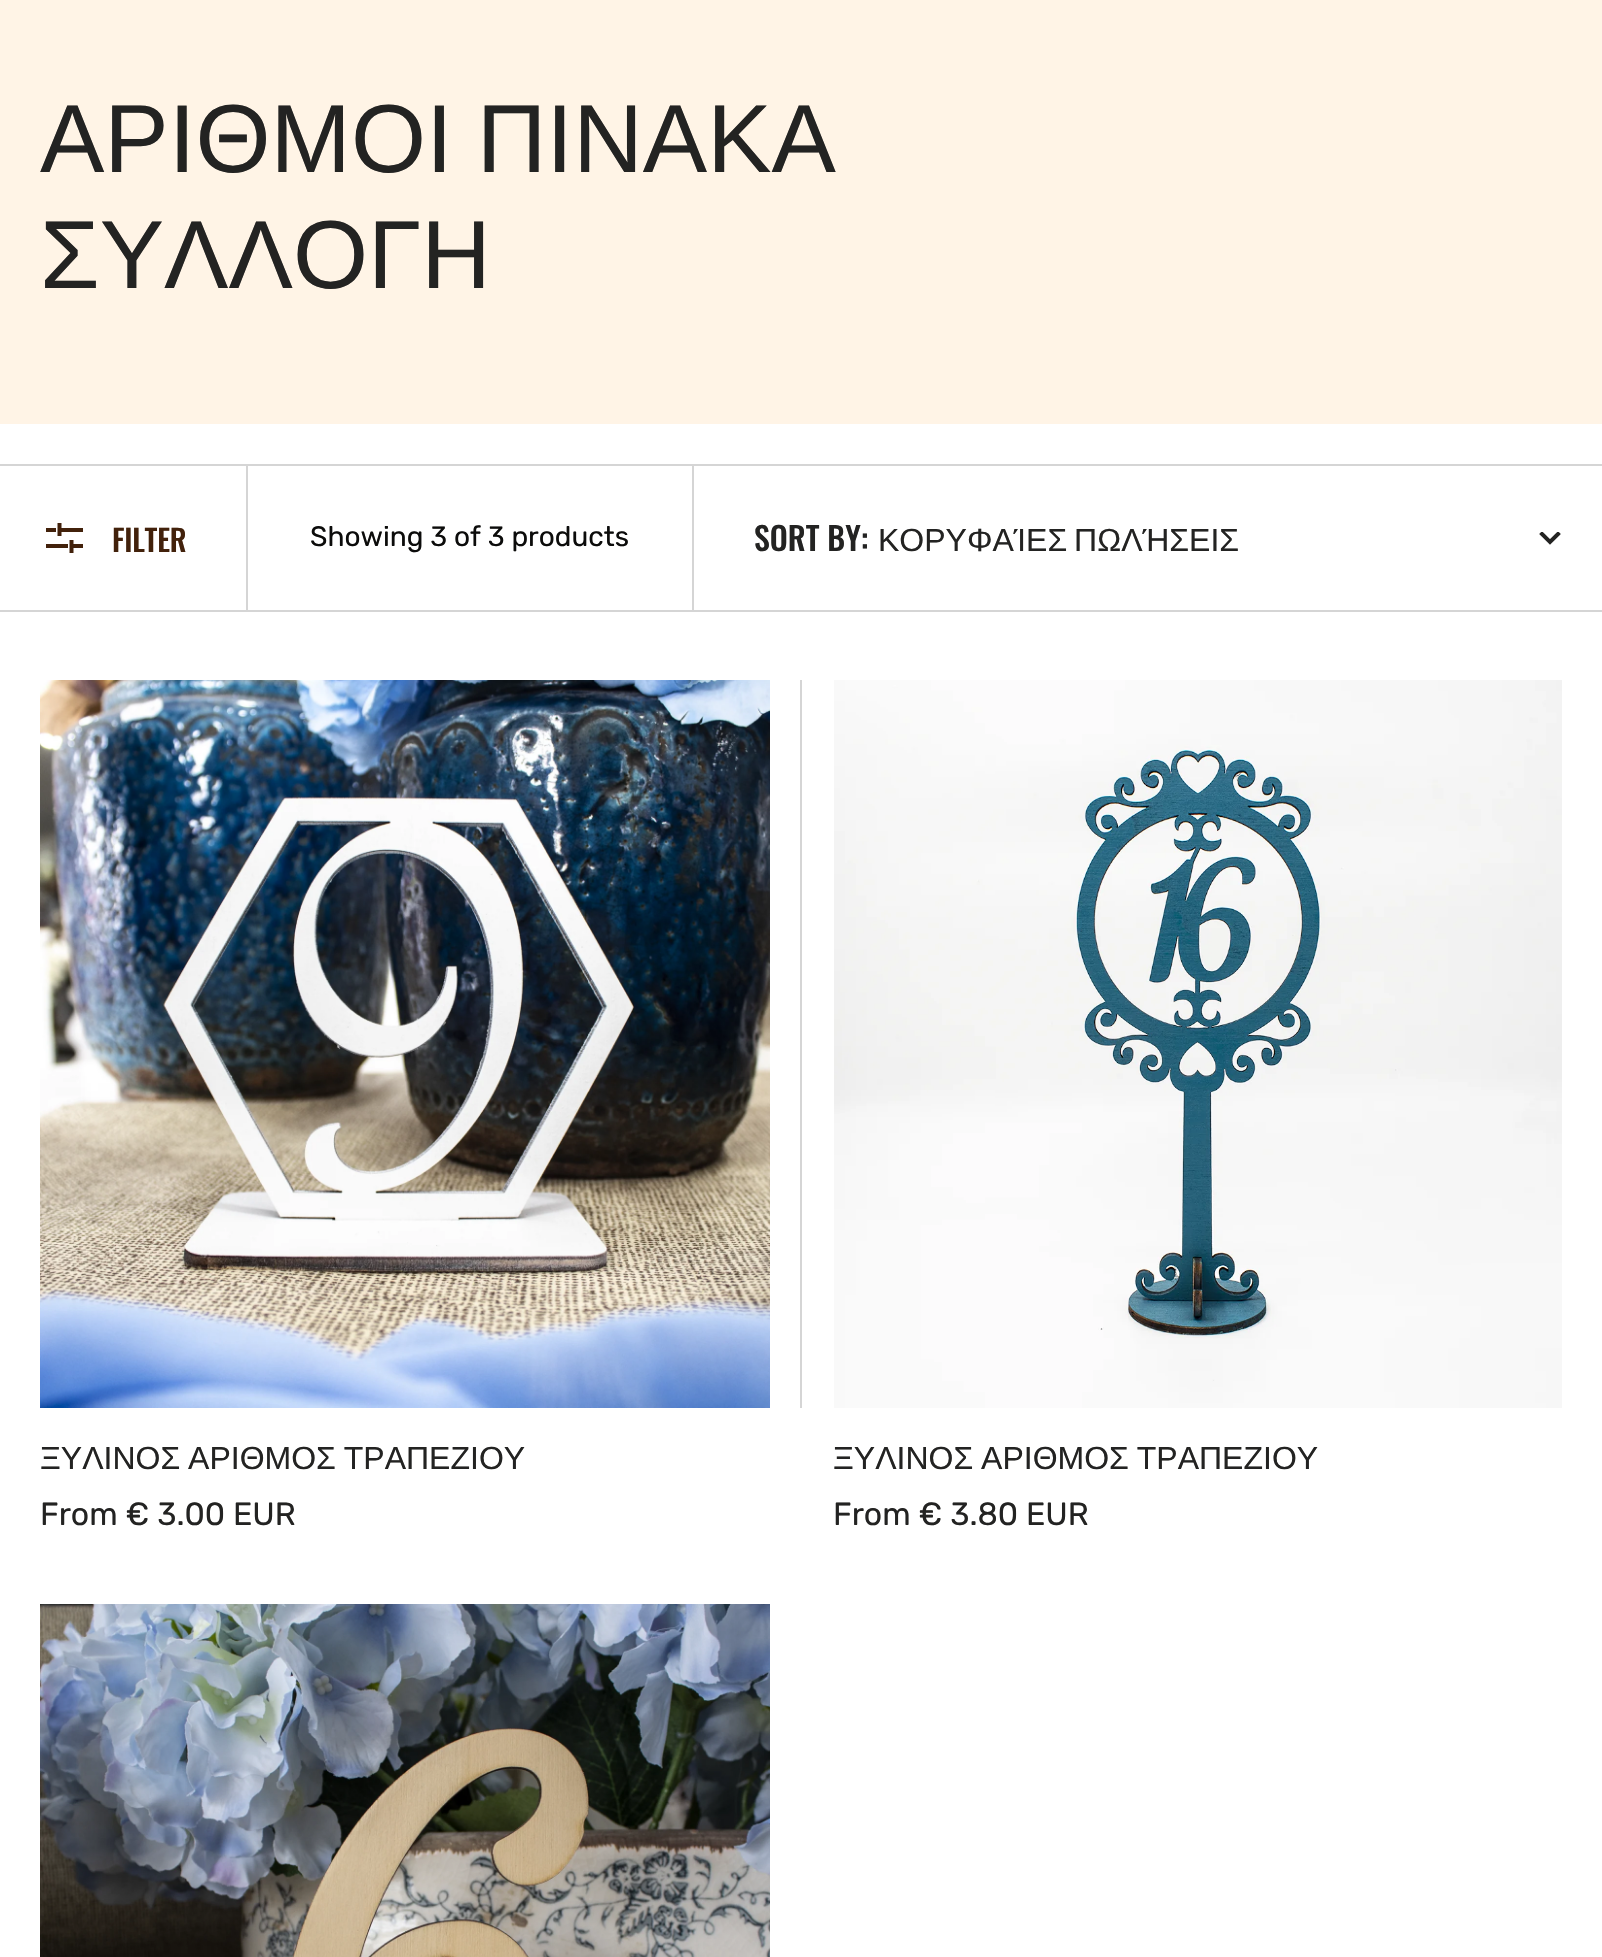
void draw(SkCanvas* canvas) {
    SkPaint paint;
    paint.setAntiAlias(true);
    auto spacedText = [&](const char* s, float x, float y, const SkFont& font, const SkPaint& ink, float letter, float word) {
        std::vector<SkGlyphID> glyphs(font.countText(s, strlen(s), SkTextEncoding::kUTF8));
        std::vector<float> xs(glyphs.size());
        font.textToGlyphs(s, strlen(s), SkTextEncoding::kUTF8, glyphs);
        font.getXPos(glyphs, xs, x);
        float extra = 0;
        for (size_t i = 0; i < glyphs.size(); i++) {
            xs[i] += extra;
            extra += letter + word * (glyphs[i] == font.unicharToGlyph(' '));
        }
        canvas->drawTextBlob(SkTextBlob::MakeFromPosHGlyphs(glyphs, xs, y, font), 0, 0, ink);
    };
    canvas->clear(0xFFFFFFFF);
    paint.setColor(0xFFFFF4E6);
    canvas->drawRect(SkRect::MakeXYWH(0, 0, 1602, 424), paint);
    SkFont font1(fontMgr->matchFamilyStyle("Liberation Sans", SkFontStyle::Normal()), 96.5f);
    font1.setSubpixel(true);
    paint.setColor(0xFF232322);
    spacedText("ΑΡΙΘΜΟΙ ΠΙΝΑΚΑ", 40, 172, font1, paint, 0, -3);
    canvas->drawString("ΣΥΛΛΟΓΗ", 40, 288, font1, paint);
    paint.setColor(0xFFD5D5D5);
    canvas->drawRect(SkRect::MakeXYWH(0, 464, 1602, 2), paint);
    canvas->drawRect(SkRect::MakeXYWH(0, 610, 1602, 2), paint);
    paint.setColor(0xFF42210B);
    canvas->drawRect(SkRect::MakeXYWH(46, 544, 22, 4), paint);
    canvas->drawRect(SkRect::MakeXYWH(70, 544, 13, 4), paint);
    canvas->drawRect(SkRect::MakeXYWH(46, 528, 10, 4), paint);
    canvas->drawRect(SkRect::MakeXYWH(58, 528, 25, 4), paint);
    paint.setStyle(SkPaint::kStroke_Style);
    paint.setStrokeWidth(4);
    paint.setStrokeCap(SkPaint::kSquare_Cap);
    paint.setStrokeJoin(SkPaint::kRound_Join);
    canvas->drawPath(SkPathBuilder().moveTo(59.5f, 525).lineTo(59.5f, 534).moveTo(71.5f, 551).lineTo(71.5f, 542).detach(), paint);
    SkFont font2(fontMgr->matchFamilyStyle("Oswald", SkFontStyle(500, SkFontStyle::kNormal_Width, SkFontStyle::kUpright_Slant)), 30);
    font2.setSubpixel(true);
    paint.setStyle(SkPaint::kFill_Style);
    spacedText("FILTER", 112, 552, font2, paint, -0.25f, 0);
    paint.setColor(0xFFD5D5D5);
    canvas->drawRect(SkRect::MakeXYWH(692, 466, 2, 144), paint);
    canvas->drawRect(SkRect::MakeXYWH(246, 466, 2, 144), paint);
    SkFont font3(fontMgr->matchFamilyStyle("Rubik", SkFontStyle::Normal()), 28);
    font3.setSubpixel(true);
    paint.setColor(0xFF0C0C0B);
    canvas->drawString("Showing 3 of 3 products", 310, 546, font3, paint);
    SkFont font4(fontMgr->matchFamilyStyle("Oswald", SkFontStyle(500, SkFontStyle::kNormal_Width, SkFontStyle::kUpright_Slant)), 32);
    font4.setSubpixel(true);
    paint.setColor(0xFF232322);
    canvas->drawString("SORT BY:", 754, 551, font4, paint);
    SkFont font5(fontMgr->matchFamilyStyle("Liberation Sans", SkFontStyle::Normal()), 32);
    font5.setSubpixel(true);
    spacedText("ΚΟΡΥΦΑΊΕΣ ΠΩΛΉΣΕΙΣ", 878, 551, font5, paint, 0, -2);
    canvas->save();
    canvas->clipRect(SkRect::MakeXYWH(1538, 532, 24, 14));
    paint.setStyle(SkPaint::kStroke_Style);
    paint.setStrokeJoin(SkPaint::kMiter_Join);
    canvas->drawPath(SkPathBuilder().moveTo(1558, 534).lineTo(1550, 542).lineTo(1542, 534).detach(), paint);
    canvas->restore();
    canvas->drawImageRect(SkImages::DeferredFromEncodedData(SkData::MakeFromFileName("img1.png")), SkRect::MakeXYWH(40, 680, 730, 728), SkSamplingOptions());
    paint.setStyle(SkPaint::kFill_Style);
    paint.setColor(0xFFD5D5D5);
    canvas->drawRect(SkRect::MakeXYWH(800, 680, 2, 728), paint);
    paint.setColor(0xFF232322);
    spacedText("ΞΥΛΙΝΟΣ ΑΡΙΘΜΟΣ ΤΡΑΠΕΖΙΟΥ", 40, 1469, font5, paint, 0, -1);
    SkFont font6(fontMgr->matchFamilyStyle("Rubik", SkFontStyle::Normal()), 32);
    font6.setSubpixel(true);
    canvas->drawString("From € 3.00 EUR", 40, 1525, font6, paint);
    canvas->drawImageRect(SkImages::DeferredFromEncodedData(SkData::MakeFromFileName("img2.png")), SkRect::MakeXYWH(834, 680, 728, 728), SkSamplingOptions());
    spacedText("ΞΥΛΙΝΟΣ ΑΡΙΘΜΟΣ ΤΡΑΠΕΖΙΟΥ", 833, 1469, font5, paint, 0, -1);
    canvas->drawString("From € 3.80 EUR", 833, 1525, font6, paint);
    canvas->drawImageRect(SkImages::DeferredFromEncodedData(SkData::MakeFromFileName("img3.png")), SkRect::MakeXYWH(40, 1604, 730, 353), SkSamplingOptions());
}
